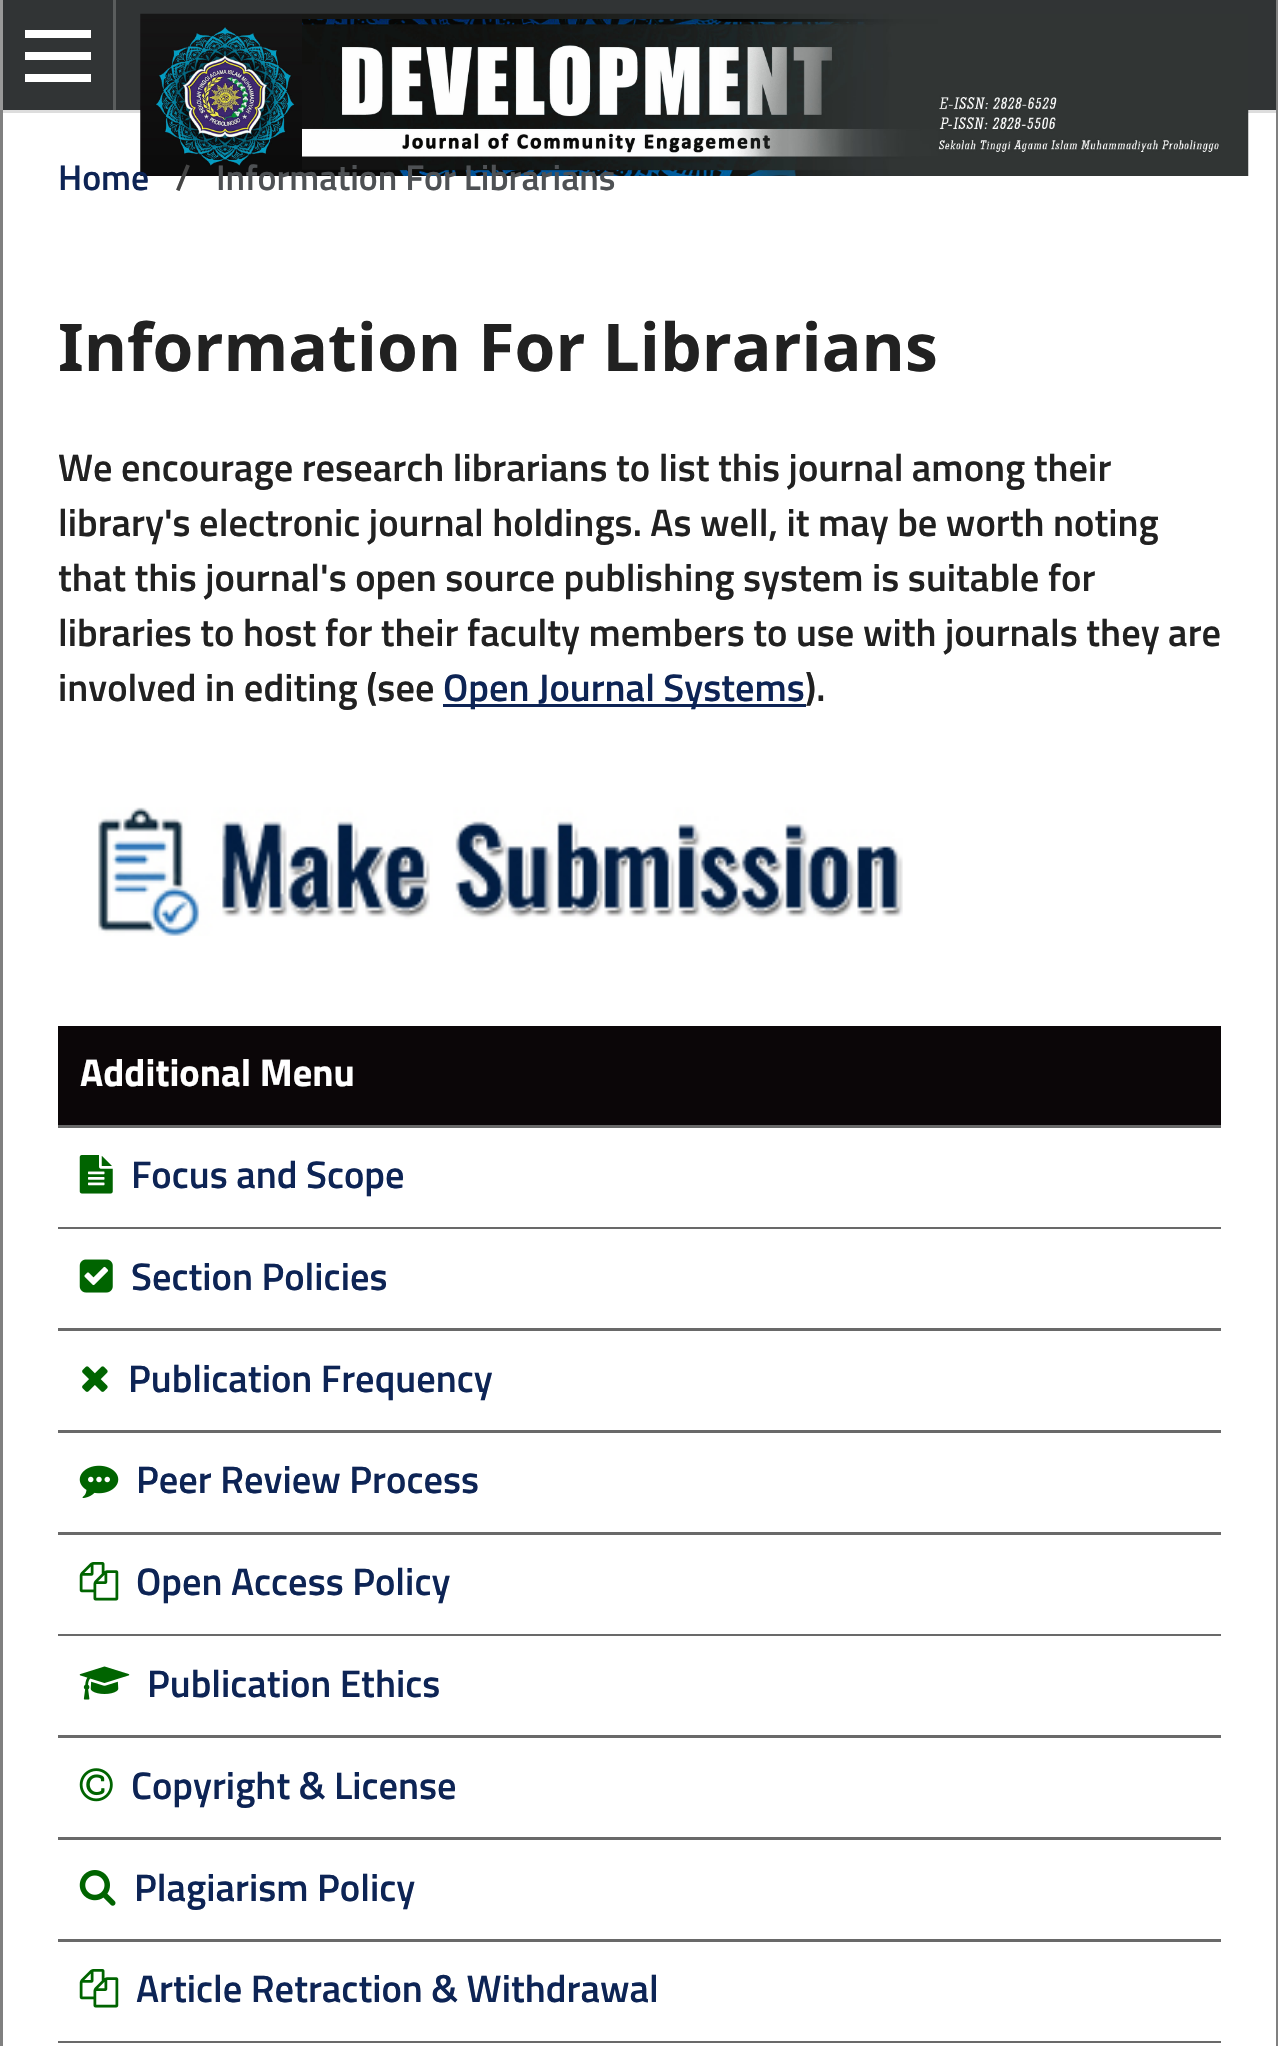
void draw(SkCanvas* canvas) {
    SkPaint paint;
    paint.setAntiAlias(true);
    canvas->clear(0xFFFFFFFF);
    paint.setColor(0xFF808080);
    canvas->drawRect(SkRect::MakeXYWH(1276, 0, 2, 2046), paint);
    canvas->drawRect(SkRect::MakeXYWH(0, 110, 3, 1936), paint);
    paint.setColor(0xFF313435);
    canvas->drawRect(SkRect::MakeXYWH(3, 0, 1273, 110), paint);
    paint.setColor(0xFFDDDDDD);
    canvas->drawRect(SkRect::MakeXYWH(3, 110, 1273, 3), paint);
    paint.setColor(0xFF999999);
    canvas->drawRect(SkRect::MakeXYWH(0, 0, 3, 110), paint);
    paint.setColor(0xFF5A5D5D);
    canvas->drawRect(SkRect::MakeXYWH(113, 0, 3, 110), paint);
    paint.setColor(0xFFFFFFFF);
    canvas->drawRect(SkRect::MakeXYWH(25, 74, 66, 8), paint);
    canvas->drawRect(SkRect::MakeXYWH(25, 30, 66, 8), paint);
    canvas->drawRect(SkRect::MakeXYWH(25, 52, 66, 8), paint);
    canvas->drawImageRect(SkImages::DeferredFromEncodedData(SkData::MakeFromFileName("img1.png")), SkRect::MakeXYWH(140, 13, 1109, 163), SkSamplingOptions());
    SkFont font1(fontMgr->matchFamilyStyle("Sunflower", SkFontStyle(500, SkFontStyle::kNormal_Width, SkFontStyle::kUpright_Slant)), 35.75f);
    font1.setSubpixel(true);
    paint.setColor(0xFF0D2455);
    canvas->drawString("Home", 58, 190, font1, paint);
    paint.setColor(0xFF454545);
    canvas->drawString("/", 175, 190, font1, paint);
    paint.setColor(0xFF4E5154);
    canvas->drawString("Information For Librarians", 216, 190, font1, paint);
    SkFont font2(fontMgr->matchFamilyStyle("Noto Sans", SkFontStyle::Bold()), 66);
    font2.setSubpixel(true);
    paint.setColor(0xFF212121);
    canvas->drawString("Information For Librarians", 58, 371, font2, paint);
    SkFont font3(fontMgr->matchFamilyStyle("Sunflower", SkFontStyle(500, SkFontStyle::kNormal_Width, SkFontStyle::kUpright_Slant)), 38.5f);
    font3.setSubpixel(true);
    canvas->drawString("We encourage research librarians to list this journal among their", 58, 481, font3, paint);
    canvas->drawString("library's electronic journal holdings. As well, it may be worth noting", 58, 536, font3, paint);
    canvas->drawString("that this journal's open source publishing system is suitable for", 58, 591, font3, paint);
    canvas->drawString("libraries to host for their faculty members to use with journals they are", 58, 646, font3, paint);
    canvas->drawString("involved in editing (see", 58, 701, font3, paint);
    paint.setColor(0xFF0D2455);
    canvas->drawRect(SkRect::MakeXYWH(443, 704, 363, 3), paint);
    canvas->drawString("Open Journal Systems", 443, 701, font3, paint);
    paint.setColor(0xFF212121);
    canvas->drawString(").", 805, 701, font3, paint);
    canvas->drawImageRect(SkImages::DeferredFromEncodedData(SkData::MakeFromFileName("img2.png")), SkRect::MakeXYWH(98, 807, 805, 129), SkSamplingOptions());
    paint.setColor(0xFF0B0608);
    canvas->drawRect(SkRect::MakeXYWH(58, 1026, 1163, 99), paint);
    paint.setColor(0xFF696969);
    canvas->drawRect(SkRect::MakeXYWH(58, 1125, 1163, 3), paint);
    SkFont font4(fontMgr->matchFamilyStyle("Sunflower", SkFontStyle::Bold()), 38.5f);
    font4.setSubpixel(true);
    paint.setColor(0xFFFFFFFF);
    canvas->drawString("Additional Menu", 80, 1086, font4, paint);
    paint.setColor(0xFF696969);
    canvas->drawRect(SkRect::MakeXYWH(58, 1227, 1163, 2), paint);
    canvas->drawImageRect(SkImages::DeferredFromEncodedData(SkData::MakeFromFileName("img3.png")), SkRect::MakeXYWH(79, 1155, 34, 39), SkSamplingOptions());
    paint.setColor(0xFF0D2455);
    canvas->drawString("Focus and Scope", 131, 1188, font3, paint);
    paint.setColor(0xFF696969);
    canvas->drawRect(SkRect::MakeXYWH(58, 1328, 1163, 3), paint);
    canvas->drawImageRect(SkImages::DeferredFromEncodedData(SkData::MakeFromFileName("img4.png")), SkRect::MakeXYWH(79, 1259, 34, 34), SkSamplingOptions());
    paint.setColor(0xFF0D2455);
    canvas->drawString("Section Policies", 131, 1290, font3, paint);
    paint.setColor(0xFF696969);
    canvas->drawRect(SkRect::MakeXYWH(58, 1430, 1163, 3), paint);
    canvas->drawImageRect(SkImages::DeferredFromEncodedData(SkData::MakeFromFileName("img5.png")), SkRect::MakeXYWH(82, 1366, 26, 26), SkSamplingOptions());
    paint.setColor(0xFF0D2455);
    canvas->drawString("Publication Frequency", 128, 1392, font3, paint);
    paint.setColor(0xFF696969);
    canvas->drawRect(SkRect::MakeXYWH(58, 1532, 1163, 3), paint);
    canvas->drawImageRect(SkImages::DeferredFromEncodedData(SkData::MakeFromFileName("img6.png")), SkRect::MakeXYWH(79, 1465, 40, 33), SkSamplingOptions());
    paint.setColor(0xFF0D2455);
    canvas->drawString("Peer Review Process", 136, 1493, font3, paint);
    paint.setColor(0xFF696969);
    canvas->drawRect(SkRect::MakeXYWH(58, 1634, 1163, 2), paint);
    canvas->drawImageRect(SkImages::DeferredFromEncodedData(SkData::MakeFromFileName("img7.png")), SkRect::MakeXYWH(79, 1562, 40, 39), SkSamplingOptions());
    paint.setColor(0xFF0D2455);
    canvas->drawString("Open Access Policy", 136, 1595, font3, paint);
    paint.setColor(0xFF696969);
    canvas->drawRect(SkRect::MakeXYWH(58, 1735, 1163, 3), paint);
    canvas->drawImageRect(SkImages::DeferredFromEncodedData(SkData::MakeFromFileName("img8.png")), SkRect::MakeXYWH(79, 1666, 51, 34), SkSamplingOptions());
    paint.setColor(0xFF0D2455);
    canvas->drawString("Publication Ethics", 147, 1697, font3, paint);
    paint.setColor(0xFF696969);
    canvas->drawRect(SkRect::MakeXYWH(58, 1837, 1163, 3), paint);
    canvas->drawImageRect(SkImages::DeferredFromEncodedData(SkData::MakeFromFileName("img9.png")), SkRect::MakeXYWH(79, 1768, 34, 34), SkSamplingOptions());
    paint.setColor(0xFF0D2455);
    canvas->drawString("Copyright & License", 131, 1799, font3, paint);
    paint.setColor(0xFF696969);
    canvas->drawRect(SkRect::MakeXYWH(58, 1939, 1163, 3), paint);
    canvas->drawImageRect(SkImages::DeferredFromEncodedData(SkData::MakeFromFileName("img10.png")), SkRect::MakeXYWH(79, 1870, 37, 36), SkSamplingOptions());
    paint.setColor(0xFF0D2455);
    canvas->drawString("Plagiarism Policy", 134, 1901, font3, paint);
    paint.setColor(0xFF696969);
    canvas->drawRect(SkRect::MakeXYWH(58, 2041, 1163, 2), paint);
    canvas->drawImageRect(SkImages::DeferredFromEncodedData(SkData::MakeFromFileName("img7.png")), SkRect::MakeXYWH(79, 1969, 40, 39), SkSamplingOptions());
    paint.setColor(0xFF0D2455);
    canvas->drawString("Article Retraction & Withdrawal", 136, 2002, font3, paint);
}
